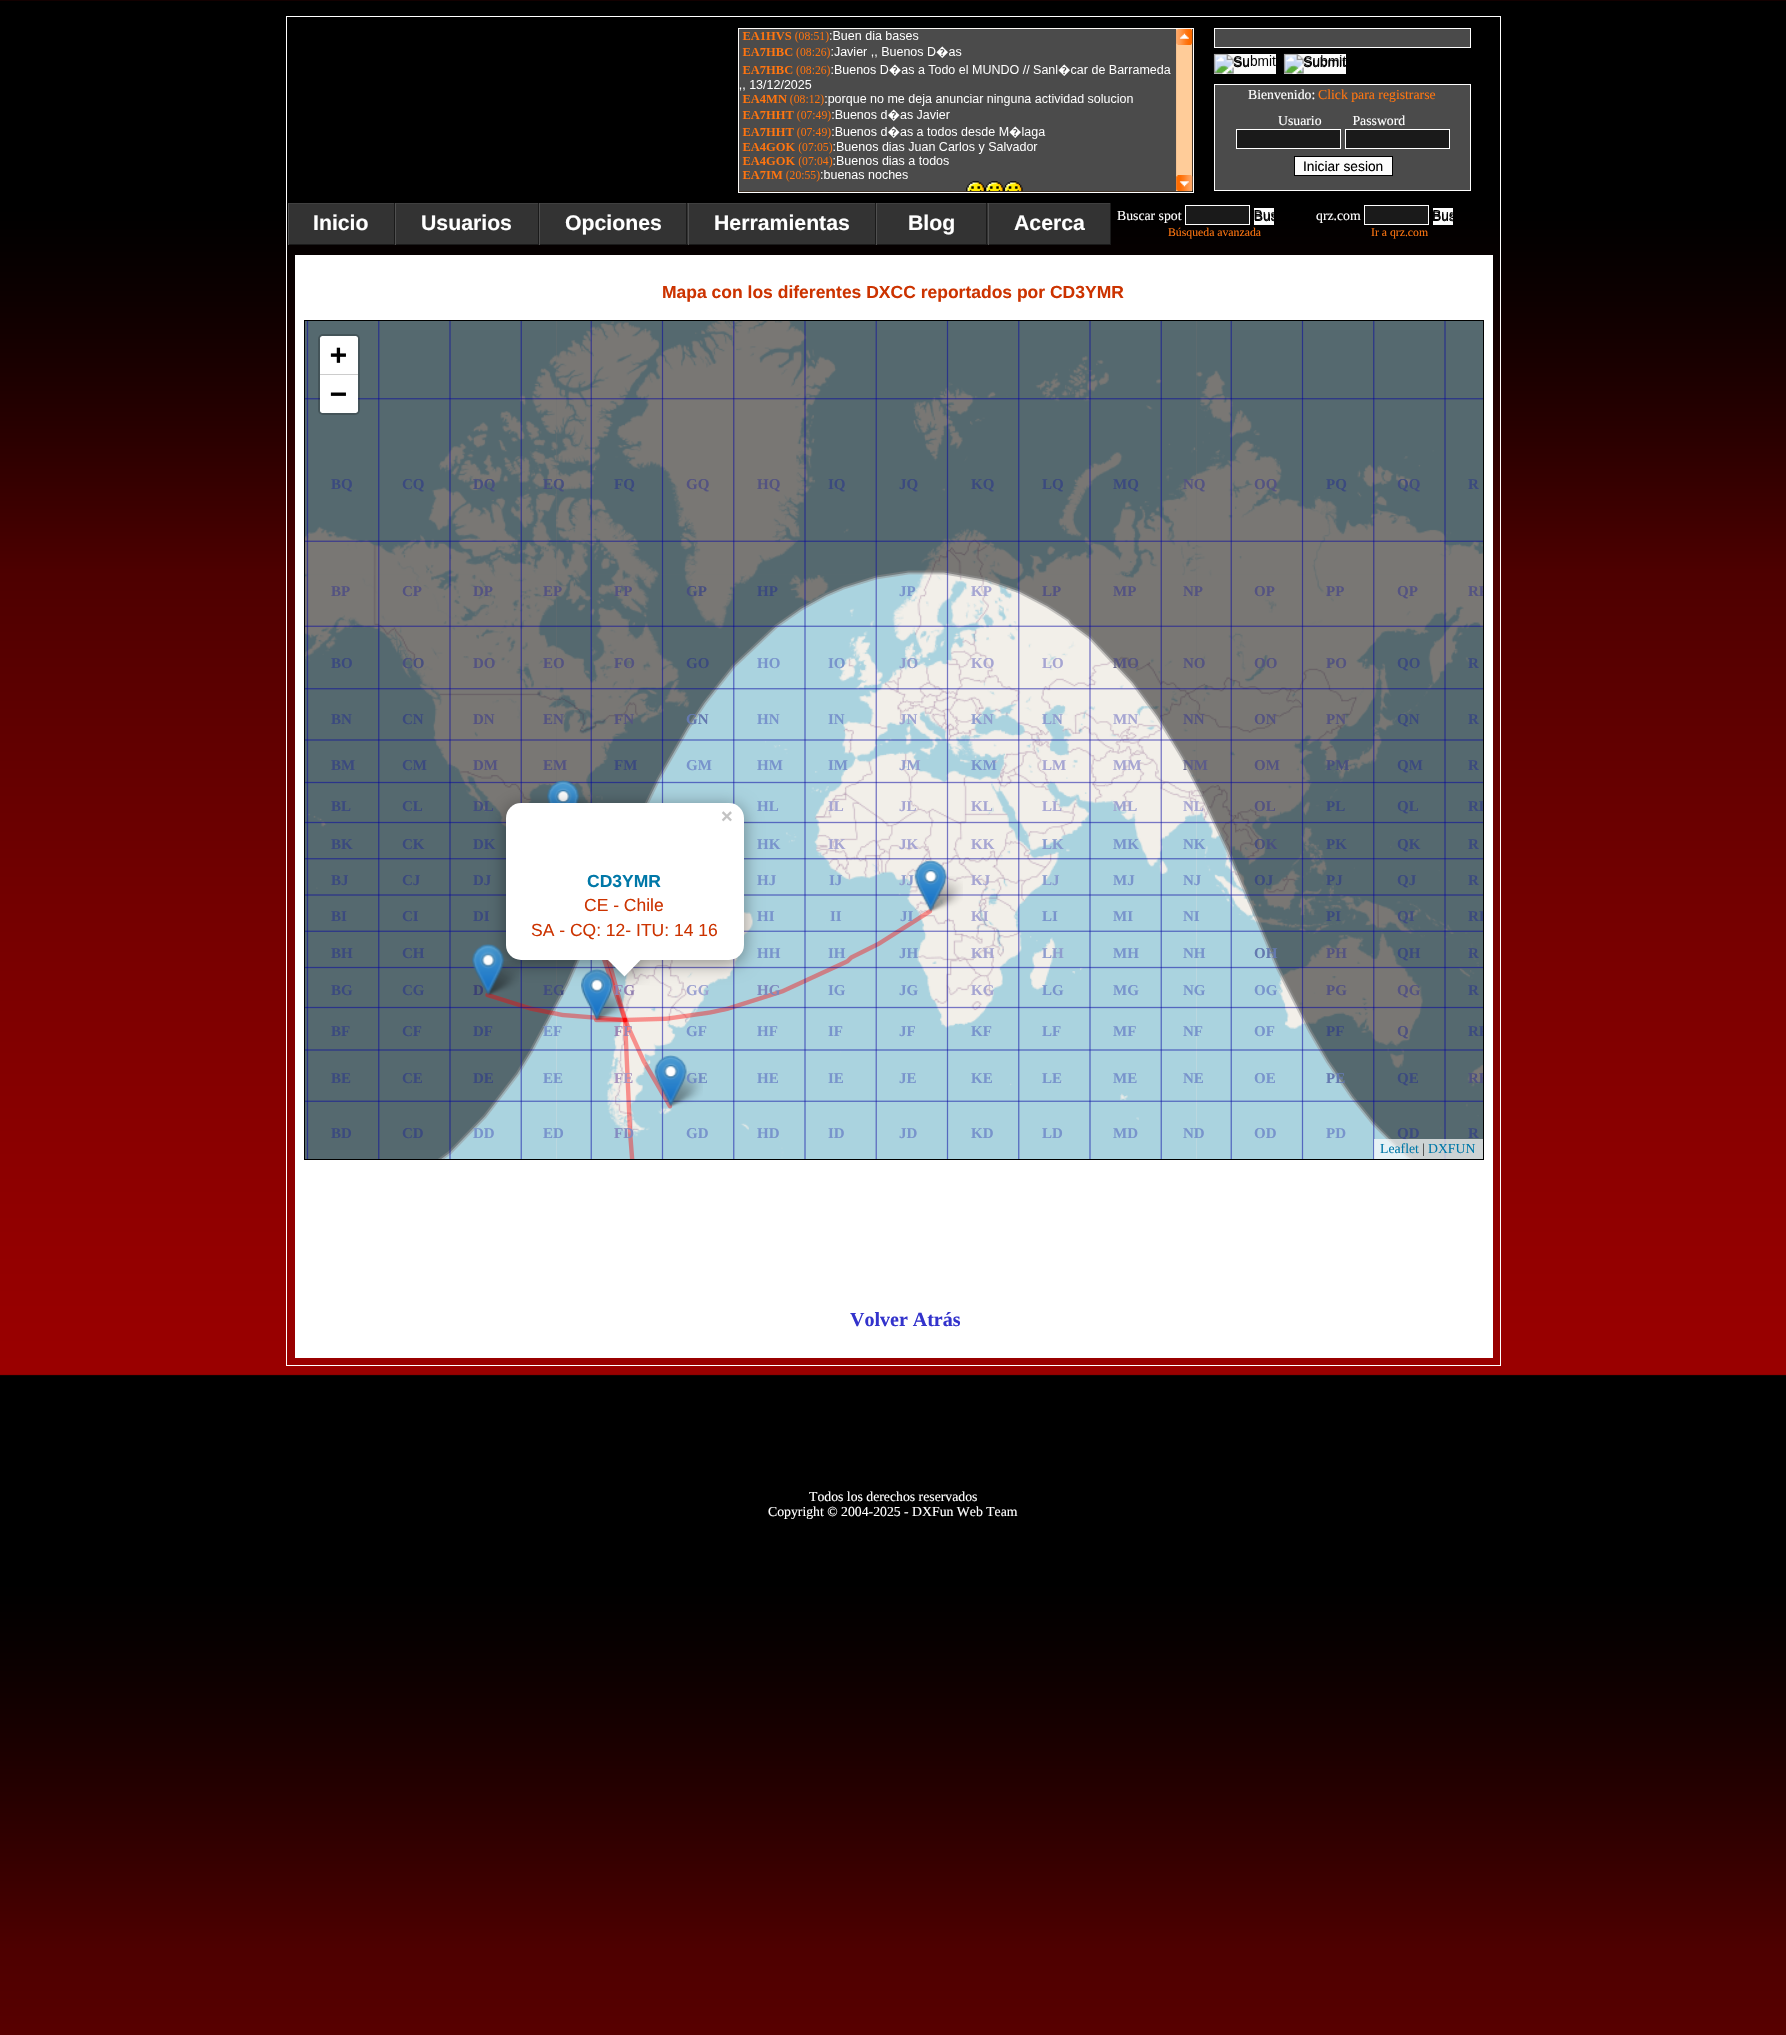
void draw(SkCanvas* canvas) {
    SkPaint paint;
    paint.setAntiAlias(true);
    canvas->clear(0xFFFFFFFF);
    canvas->drawImageRect(SkImages::DeferredFromEncodedData(SkData::MakeFromFileName("img1.png")), SkRect::MakeXYWH(0, 0, 1786, 2035), SkSamplingOptions());
    paint.setStyle(SkPaint::kStroke_Style);
    paint.setStrokeWidth(1);
    paint.setColor(0xFFFFFFFF);
    canvas->drawRect(SkRect::MakeXYWH(286.5f, 16.5f, 1214, 1349), paint);
    canvas->drawRect(SkRect::MakeXYWH(738.5f, 28.5f, 455, 164), paint);
    canvas->drawImageRect(SkImages::DeferredFromEncodedData(SkData::MakeFromFileName("img2.png")), SkRect::MakeXYWH(738, 28, 455, 164), SkSamplingOptions());
    paint.setStyle(SkPaint::kFill_Style);
    paint.setColor(0xFF4A4A4A);
    canvas->drawRect(SkRect::MakeXYWH(1214.5f, 28.5f, 256, 19), paint);
    paint.setStyle(SkPaint::kStroke_Style);
    paint.setColor(0xFFFFFFFF);
    canvas->drawRect(SkRect::MakeXYWH(1214.5f, 28.5f, 256, 19), paint);
    paint.setStyle(SkPaint::kFill_Style);
    paint.setColor(0xFFFCFCFC);
    canvas->drawRect(SkRect::MakeXYWH(1214, 54, 62, 20), paint);
    canvas->drawImageRect(SkImages::DeferredFromEncodedData(SkData::MakeFromFileName("img3.png")), SkRect::MakeXYWH(1213, 53, 63, 21), SkSamplingOptions());
    SkFont font1(fontMgr->matchFamilyStyle("Liberation Sans", SkFontStyle::Normal()), 13.75f);
    font1.setSubpixel(true);
    paint.setColor(0xFF000000);
    canvas->drawString("Su", 1233, 67, font1, paint);
    paint.setColor(0xFFFCFCFC);
    canvas->drawRect(SkRect::MakeXYWH(1284, 54, 62, 20), paint);
    canvas->drawImageRect(SkImages::DeferredFromEncodedData(SkData::MakeFromFileName("img4.png")), SkRect::MakeXYWH(1283, 53, 63, 21), SkSamplingOptions());
    paint.setColor(0xFF000000);
    canvas->drawString("Submit", 1303, 67, font1, paint);
    paint.setColor(0xFF4B4B4B);
    canvas->drawRect(SkRect::MakeXYWH(1214.5f, 84.5f, 256, 106), paint);
    paint.setStyle(SkPaint::kStroke_Style);
    paint.setColor(0xFFFFFFFF);
    canvas->drawRect(SkRect::MakeXYWH(1214.5f, 84.5f, 256, 106), paint);
    SkFont font2(fontMgr->matchFamilyStyle("Liberation Serif", SkFontStyle::Normal()), 13.75f);
    font2.setSubpixel(true);
    paint.setStyle(SkPaint::kFill_Style);
    canvas->drawString("Bienvenido:", 1248, 99, font2, paint);
    paint.setColor(0xFFFF7510);
    canvas->drawString("Click para registrarse", 1318, 99, font2, paint);
    paint.setColor(0xFFFFFFFF);
    canvas->drawString("Usuario         Password", 1278, 125, font2, paint);
    paint.setColor(0xFF1A1A1A);
    canvas->drawRect(SkRect::MakeXYWH(1236.5f, 129.5f, 104, 19), paint);
    paint.setStyle(SkPaint::kStroke_Style);
    paint.setColor(0xFFFFFFFF);
    canvas->drawRect(SkRect::MakeXYWH(1236.5f, 129.5f, 104, 19), paint);
    paint.setStyle(SkPaint::kFill_Style);
    paint.setColor(0xFF1A1A1A);
    canvas->drawRect(SkRect::MakeXYWH(1345.5f, 129.5f, 104, 19), paint);
    paint.setStyle(SkPaint::kStroke_Style);
    paint.setColor(0xFFFFFFFF);
    canvas->drawRect(SkRect::MakeXYWH(1345.5f, 129.5f, 104, 19), paint);
    paint.setStyle(SkPaint::kFill_Style);
    paint.setColor(0xFFFCFCFC);
    canvas->drawRect(SkRect::MakeXYWH(1294.5f, 156.5f, 98, 19), paint);
    paint.setStyle(SkPaint::kStroke_Style);
    paint.setColor(0xFF000000);
    canvas->drawRect(SkRect::MakeXYWH(1294.5f, 156.5f, 98, 19), paint);
    paint.setStyle(SkPaint::kFill_Style);
    canvas->drawString("Iniciar sesion", 1303, 171, font1, paint);
    paint.setColor(0xFF333333);
    canvas->drawRect(SkRect::MakeXYWH(289, 204, 105, 40), paint);
    paint.setColor(0xFF404040);
    canvas->drawRect(SkRect::MakeXYWH(288, 203, 823, 1), paint);
    paint.setColor(0xFF1A1A1A);
    canvas->drawRect(SkRect::MakeXYWH(394, 203, 1, 42), paint);
    canvas->drawRect(SkRect::MakeXYWH(288, 244, 107, 1), paint);
    paint.setColor(0xFF505050);
    canvas->drawRect(SkRect::MakeXYWH(288, 203, 1, 42), paint);
    SkFont font3(fontMgr->matchFamilyStyle("Liberation Sans", SkFontStyle::Bold()), 21.25f);
    font3.setSubpixel(true);
    paint.setColor(0xFFFFFFFF);
    canvas->drawString("Inicio", 313, 230, font3, paint);
    paint.setColor(0xFF333333);
    canvas->drawRect(SkRect::MakeXYWH(396, 204, 142, 40), paint);
    paint.setColor(0xFF1A1A1A);
    canvas->drawRect(SkRect::MakeXYWH(538, 203, 1, 42), paint);
    canvas->drawRect(SkRect::MakeXYWH(395, 244, 144, 1), paint);
    paint.setColor(0xFF505050);
    canvas->drawRect(SkRect::MakeXYWH(395, 203, 1, 42), paint);
    paint.setColor(0xFFFFFFFF);
    canvas->drawString("Usuarios", 421, 230, font3, paint);
    paint.setColor(0xFF333333);
    canvas->drawRect(SkRect::MakeXYWH(540, 204, 148, 40), paint);
    paint.setColor(0xFF1A1A1A);
    canvas->drawRect(SkRect::MakeXYWH(686, 203, 1, 42), paint);
    canvas->drawRect(SkRect::MakeXYWH(539, 244, 149, 1), paint);
    paint.setColor(0xFF505050);
    canvas->drawRect(SkRect::MakeXYWH(539, 203, 1, 42), paint);
    paint.setColor(0xFFFFFFFF);
    canvas->drawString("Opciones", 565, 230, font3, paint);
    paint.setColor(0xFF333333);
    canvas->drawRect(SkRect::MakeXYWH(689, 204, 186, 40), paint);
    paint.setColor(0xFF1A1A1A);
    canvas->drawRect(SkRect::MakeXYWH(875, 203, 1, 42), paint);
    canvas->drawRect(SkRect::MakeXYWH(688, 244, 188, 1), paint);
    paint.setColor(0xFF505050);
    canvas->drawRect(SkRect::MakeXYWH(688, 203, 1, 42), paint);
    paint.setColor(0xFFFFFFFF);
    canvas->drawString("Herramientas", 714, 230, font3, paint);
    paint.setColor(0xFF333333);
    canvas->drawRect(SkRect::MakeXYWH(877, 204, 111, 40), paint);
    paint.setColor(0xFF1A1A1A);
    canvas->drawRect(SkRect::MakeXYWH(986, 203, 1, 42), paint);
    canvas->drawRect(SkRect::MakeXYWH(876, 244, 112, 1), paint);
    paint.setColor(0xFF505050);
    canvas->drawRect(SkRect::MakeXYWH(876, 203, 1, 42), paint);
    paint.setColor(0xFFFFFFFF);
    canvas->drawString("Blog", 908, 230, font3, paint);
    paint.setColor(0xFF333333);
    canvas->drawRect(SkRect::MakeXYWH(989, 204, 121, 40), paint);
    paint.setColor(0xFF1A1A1A);
    canvas->drawRect(SkRect::MakeXYWH(1110, 203, 1, 42), paint);
    canvas->drawRect(SkRect::MakeXYWH(988, 244, 123, 1), paint);
    paint.setColor(0xFF505050);
    canvas->drawRect(SkRect::MakeXYWH(988, 203, 1, 42), paint);
    paint.setColor(0xFFFFFFFF);
    canvas->drawString("Acerca", 1014, 230, font3, paint);
    canvas->drawString("Buscar spot", 1117, 220, font2, paint);
    paint.setColor(0xFF1A1A1A);
    canvas->drawRect(SkRect::MakeXYWH(1185.5f, 205.5f, 64, 19), paint);
    paint.setStyle(SkPaint::kStroke_Style);
    paint.setColor(0xFFFFFFFF);
    canvas->drawRect(SkRect::MakeXYWH(1185.5f, 205.5f, 64, 19), paint);
    paint.setStyle(SkPaint::kFill_Style);
    paint.setColor(0xFFFCFCFC);
    canvas->drawRect(SkRect::MakeXYWH(1254, 208, 20, 17), paint);
    canvas->drawImageRect(SkImages::DeferredFromEncodedData(SkData::MakeFromFileName("img5.png")), SkRect::MakeXYWH(1254, 210, 20, 10), SkSamplingOptions());
    canvas->save();
    canvas->clipRect(SkRect::MakeXYWH(1254, 208, 20, 17));
    paint.setColor(0xFF000000);
    canvas->drawString("Bus", 1254, 221, font1, paint);
    canvas->restore();
    SkFont font4(fontMgr->matchFamilyStyle("Liberation Serif", SkFontStyle::Normal()), 11.75f);
    font4.setSubpixel(true);
    paint.setColor(0xFFFF7510);
    canvas->drawString("Búsqueda avanzada", 1168, 236, font4, paint);
    paint.setColor(0xFFFFFFFF);
    canvas->drawString("qrz.com", 1316, 220, font2, paint);
    paint.setColor(0xFF1A1A1A);
    canvas->drawRect(SkRect::MakeXYWH(1364.5f, 205.5f, 64, 19), paint);
    paint.setStyle(SkPaint::kStroke_Style);
    paint.setColor(0xFFFFFFFF);
    canvas->drawRect(SkRect::MakeXYWH(1364.5f, 205.5f, 64, 19), paint);
    paint.setStyle(SkPaint::kFill_Style);
    paint.setColor(0xFFFCFCFC);
    canvas->drawRect(SkRect::MakeXYWH(1433, 208, 20, 17), paint);
    canvas->drawImageRect(SkImages::DeferredFromEncodedData(SkData::MakeFromFileName("img6.png")), SkRect::MakeXYWH(1433, 210, 20, 10), SkSamplingOptions());
    canvas->save();
    canvas->clipRect(SkRect::MakeXYWH(1433, 208, 20, 17));
    paint.setColor(0xFF000000);
    canvas->drawString("Bus", 1432, 221, font1, paint);
    canvas->restore();
    paint.setColor(0xFFFF7510);
    canvas->drawString("Ir a qrz.com", 1371, 236, font4, paint);
    paint.setColor(0xFFFFFFFF);
    canvas->drawRect(SkRect::MakeXYWH(295, 255, 1198, 1103), paint);
    SkFont font5(fontMgr->matchFamilyStyle("Liberation Sans", SkFontStyle::Bold()), 17.5f);
    font5.setSubpixel(true);
    paint.setColor(0xFFCC3300);
    canvas->drawString("Mapa con los diferentes DXCC reportados por CD3YMR", 662, 298, font5, paint);
    paint.setColor(0xFFDDDDDD);
    canvas->drawRect(SkRect::MakeXYWH(304.5f, 320.5f, 1179, 839), paint);
    paint.setStyle(SkPaint::kStroke_Style);
    paint.setColor(0xFF000000);
    canvas->drawRect(SkRect::MakeXYWH(304.5f, 320.5f, 1179, 839), paint);
    canvas->drawImageRect(SkImages::DeferredFromEncodedData(SkData::MakeFromFileName("img11.png")), SkRect::MakeXYWH(305, 575, 251, 320), SkSamplingOptions());
    canvas->drawImageRect(SkImages::DeferredFromEncodedData(SkData::MakeFromFileName("img7.png")), SkRect::MakeXYWH(305, 321, 251, 255), SkSamplingOptions());
    canvas->drawImageRect(SkImages::DeferredFromEncodedData(SkData::MakeFromFileName("img12.png")), SkRect::MakeXYWH(556, 575, 320, 320), SkSamplingOptions());
    canvas->drawImageRect(SkImages::DeferredFromEncodedData(SkData::MakeFromFileName("img8.png")), SkRect::MakeXYWH(556, 321, 320, 255), SkSamplingOptions());
    canvas->drawImageRect(SkImages::DeferredFromEncodedData(SkData::MakeFromFileName("img13.png")), SkRect::MakeXYWH(876, 575, 320, 321), SkSamplingOptions());
    canvas->drawImageRect(SkImages::DeferredFromEncodedData(SkData::MakeFromFileName("img9.png")), SkRect::MakeXYWH(876, 321, 320, 255), SkSamplingOptions());
    canvas->drawImageRect(SkImages::DeferredFromEncodedData(SkData::MakeFromFileName("img10.png")), SkRect::MakeXYWH(1196, 321, 287, 254), SkSamplingOptions());
    canvas->drawImageRect(SkImages::DeferredFromEncodedData(SkData::MakeFromFileName("img14.png")), SkRect::MakeXYWH(1196, 575, 287, 321), SkSamplingOptions());
    paint.setStyle(SkPaint::kFill_Style);
    paint.setColor(0xFFAAD3DF);
    canvas->drawRect(SkRect::MakeXYWH(305, 895, 251, 264), paint);
    canvas->drawImageRect(SkImages::DeferredFromEncodedData(SkData::MakeFromFileName("img15.png")), SkRect::MakeXYWH(556, 895, 320, 264), SkSamplingOptions());
    canvas->drawImageRect(SkImages::DeferredFromEncodedData(SkData::MakeFromFileName("img16.png")), SkRect::MakeXYWH(876, 895, 320, 264), SkSamplingOptions());
    canvas->drawImageRect(SkImages::DeferredFromEncodedData(SkData::MakeFromFileName("img17.png")), SkRect::MakeXYWH(1196, 895, 287, 264), SkSamplingOptions());
    canvas->drawImageRect(SkImages::DeferredFromEncodedData(SkData::MakeFromFileName("img18.png")), SkRect::MakeXYWH(305, 321, 1178, 838), SkSamplingOptions());
    paint.setStyle(SkPaint::kStroke_Style);
    paint.setStrokeWidth(3);
    paint.setColor(0x33000000);
    canvas->drawRoundRect(SkRect::MakeXYWH(319.5f, 335.5f, 39, 78), 3.5f, 3.5f, paint);
    paint.setStyle(SkPaint::kFill_Style);
    paint.setColor(0xFFFFFFFF);
    canvas->drawPath(SkPathBuilder().moveTo(322.5f, 336).lineTo(355.5f, 336).cubicTo(357, 336, 358, 337, 358, 338.5f).lineTo(358, 375).lineTo(320, 375).lineTo(320, 338.5f).cubicTo(320, 337, 321, 336, 322.5f, 336).close().detach(), paint);
    paint.setColor(0xFFCCCCCC);
    canvas->drawRect(SkRect::MakeXYWH(320, 374, 38, 1), paint);
    SkFont font6(fontMgr->matchFamilyStyle("DejaVu Sans Mono", SkFontStyle::Bold()), 28);
    font6.setSubpixel(true);
    paint.setColor(0xFF000000);
    canvas->drawString("+", 330, 364, font6, paint);
    paint.setColor(0xFFFFFFFF);
    canvas->drawPath(SkPathBuilder().moveTo(320, 375).lineTo(358, 375).lineTo(358, 410.5f).cubicTo(358, 412, 357, 413, 355.5f, 413).lineTo(322.5f, 413).cubicTo(321, 413, 320, 412, 320, 410.5f).close().detach(), paint);
    paint.setColor(0xFF000000);
    canvas->drawString("−", 330, 403, font6, paint);
    SkFont font7(fontMgr->matchFamilyStyle("Liberation Serif", SkFontStyle::Bold()), 15);
    font7.setSubpixel(true);
    paint.setColor(0xFF3B4A7E);
    canvas->drawString("QD", 1397, 1138, font7, paint);
    paint.setColor(0xB3FFFFFF);
    canvas->drawRect(SkRect::MakeXYWH(1374, 1139, 109, 20), paint);
    paint.setColor(0xFF0078A8);
    canvas->drawString("Leaflet", 1380, 1153, font2, paint);
    paint.setColor(0xFF333333);
    canvas->drawString("|", 1422, 1153, font2, paint);
    paint.setColor(0xFF0078A8);
    canvas->drawString("DXFUN", 1428, 1153, font2, paint);
    paint.setColor(0xFF3B4A7E);
    canvas->drawString("BQ", 331, 489, font7, paint);
    canvas->drawString("CQ", 402, 489, font7, paint);
    paint.setColor(0xFF484F7F);
    canvas->drawString("DQ", 473, 489, font7, paint);
    canvas->drawString("EQ", 543, 489, font7, paint);
    paint.setColor(0xFF3B4A7E);
    canvas->drawString("FQ", 614, 489, font7, paint);
    paint.setColor(0xFF545381);
    canvas->drawString("GQ", 686, 489, font7, paint);
    canvas->drawString("HQ", 757, 489, font7, paint);
    paint.setColor(0xFF3B4A7E);
    canvas->drawString("IQ", 828, 489, font7, paint);
    canvas->drawString("JQ", 899, 489, font7, paint);
    canvas->drawString("KQ", 971, 489, font7, paint);
    canvas->drawString("LQ", 1042, 489, font7, paint);
    canvas->drawString("MQ", 1113, 489, font7, paint);
    paint.setColor(0xFF545381);
    canvas->drawString("NQ", 1183, 489, font7, paint);
    canvas->drawString("OQ", 1254, 489, font7, paint);
    paint.setColor(0xFF3B4A7E);
    canvas->drawString("PQ", 1326, 489, font7, paint);
    paint.setColor(0xFF414C7F);
    canvas->drawString("QQ", 1397, 489, font7, paint);
    paint.setColor(0xFF3B4A7E);
    canvas->drawString("R", 1468, 489, font7, paint);
    paint.setColor(0xFF545381);
    canvas->drawString("BP", 331, 596, font7, paint);
    canvas->drawString("CP", 402, 596, font7, paint);
    canvas->drawString("DP", 473, 596, font7, paint);
    canvas->drawString("EP", 543, 596, font7, paint);
    canvas->drawString("FP", 614, 596, font7, paint);
    paint.setColor(0xFF484F7F);
    canvas->drawString("GP", 686, 596, font7, paint);
    paint.setColor(0xFF3B4A7E);
    canvas->drawString("HP", 757, 596, font7, paint);
    paint.setColor(0xFF7894CC);
    canvas->drawString("JP", 899, 596, font7, paint);
    paint.setColor(0xFFA6A5D2);
    canvas->drawString("KP", 971, 596, font7, paint);
    paint.setColor(0xFF545381);
    canvas->drawString("LP", 1042, 596, font7, paint);
    canvas->drawString("MP", 1113, 596, font7, paint);
    canvas->drawString("NP", 1183, 596, font7, paint);
    canvas->drawString("OP", 1254, 596, font7, paint);
    canvas->drawString("PP", 1326, 596, font7, paint);
    canvas->drawString("QP", 1397, 596, font7, paint);
    canvas->save();
    canvas->clipRect(SkRect::MakeXYWH(305, 321, 1178, 838));
    canvas->drawString("RP", 1468, 596, font7, paint);
    canvas->restore();
    paint.setColor(0xFF3B4A7E);
    canvas->drawString("BO", 331, 668, font7, paint);
    paint.setColor(0xFF484F7F);
    canvas->drawString("CO", 402, 668, font7, paint);
    paint.setColor(0xFF545381);
    canvas->drawString("DO", 473, 668, font7, paint);
    canvas->drawString("EO", 543, 668, font7, paint);
    canvas->drawString("FO", 614, 668, font7, paint);
    paint.setColor(0xFF3B4A7E);
    canvas->drawString("GO", 686, 668, font7, paint);
    paint.setColor(0xFF7894CC);
    canvas->drawString("HO", 757, 668, font7, paint);
    canvas->drawString("IO", 828, 668, font7, paint);
    paint.setColor(0xFF8E9CCE);
    canvas->drawString("JO", 899, 668, font7, paint);
    paint.setColor(0xFFA6A5D2);
    canvas->drawString("KO", 971, 668, font7, paint);
    canvas->drawString("LO", 1042, 668, font7, paint);
    paint.setColor(0xFF545381);
    canvas->drawString("MO", 1113, 668, font7, paint);
    canvas->drawString("NO", 1183, 668, font7, paint);
    canvas->drawString("OO", 1254, 668, font7, paint);
    canvas->drawString("PO", 1326, 668, font7, paint);
    paint.setColor(0xFF3B4A7E);
    canvas->drawString("QO", 1397, 668, font7, paint);
    canvas->drawString("R", 1468, 668, font7, paint);
    canvas->drawString("BN", 331, 724, font7, paint);
    canvas->drawString("CN", 402, 724, font7, paint);
    paint.setColor(0xFF545381);
    canvas->drawString("DN", 473, 724, font7, paint);
    canvas->drawString("EN", 543, 724, font7, paint);
    canvas->drawString("FN", 614, 724, font7, paint);
    paint.setColor(0xFF6479B0);
    canvas->drawString("GN", 686, 724, font7, paint);
    paint.setColor(0xFF7894CC);
    canvas->drawString("HN", 757, 724, font7, paint);
    canvas->drawString("IN", 828, 724, font7, paint);
    paint.setColor(0xFF9DA2D1);
    canvas->drawString("JN", 899, 724, font7, paint);
    paint.setColor(0xFF8E9CCE);
    canvas->drawString("KN", 971, 724, font7, paint);
    canvas->drawString("LN", 1042, 724, font7, paint);
    paint.setColor(0xFFA6A5D2);
    canvas->drawString("MN", 1113, 724, font7, paint);
    paint.setColor(0xFF545381);
    canvas->drawString("NN", 1183, 724, font7, paint);
    canvas->drawString("ON", 1254, 724, font7, paint);
    canvas->drawString("PN", 1326, 724, font7, paint);
    paint.setColor(0xFF3B4A7E);
    canvas->drawString("QN", 1397, 724, font7, paint);
    canvas->drawString("R", 1468, 724, font7, paint);
    canvas->drawString("BM", 331, 770, font7, paint);
    canvas->drawString("CM", 402, 770, font7, paint);
    paint.setColor(0xFF545381);
    canvas->drawString("DM", 473, 770, font7, paint);
    canvas->drawString("EM", 543, 770, font7, paint);
    paint.setColor(0xFF3B4A7E);
    canvas->drawString("FM", 614, 770, font7, paint);
    paint.setColor(0xFF7894CC);
    canvas->drawString("GM", 686, 770, font7, paint);
    canvas->drawString("HM", 757, 770, font7, paint);
    canvas->drawString("IM", 828, 770, font7, paint);
    paint.setColor(0xFF959DCF);
    canvas->drawString("JM", 899, 770, font7, paint);
    paint.setColor(0xFF7894CC);
    canvas->drawString("KM", 971, 770, font7, paint);
    paint.setColor(0xFFA6A5D2);
    canvas->drawString("LM", 1042, 770, font7, paint);
    canvas->drawString("MM", 1113, 770, font7, paint);
    paint.setColor(0xFF5C5B89);
    canvas->drawString("NM", 1183, 770, font7, paint);
    paint.setColor(0xFF545381);
    canvas->drawString("OM", 1254, 770, font7, paint);
    paint.setColor(0xFF484F7F);
    canvas->drawString("PM", 1326, 770, font7, paint);
    paint.setColor(0xFF3B4A7E);
    canvas->drawString("QM", 1397, 770, font7, paint);
    canvas->drawString("R", 1468, 770, font7, paint);
    canvas->drawImageRect(SkImages::DeferredFromEncodedData(SkData::MakeFromFileName("img24.png")), SkRect::MakeXYWH(575, 797, 18, 6), SkSamplingOptions());
    canvas->drawImageRect(SkImages::DeferredFromEncodedData(SkData::MakeFromFileName("img19.png")), SkRect::MakeXYWH(547, 780, 33, 23), SkSamplingOptions());
    canvas->drawString("BL", 331, 811, font7, paint);
    canvas->drawString("CL", 402, 811, font7, paint);
    paint.setColor(0xFF414C7F);
    canvas->drawString("DL", 473, 811, font7, paint);
    paint.setColor(0xFF7894CC);
    canvas->drawString("HL", 757, 811, font7, paint);
    paint.setColor(0xFFA6A5D2);
    canvas->drawString("IL", 828, 811, font7, paint);
    canvas->drawString("JL", 899, 811, font7, paint);
    canvas->drawString("KL", 971, 811, font7, paint);
    canvas->drawString("LL", 1042, 811, font7, paint);
    paint.setColor(0xFF9DA2D1);
    canvas->drawString("ML", 1113, 811, font7, paint);
    paint.setColor(0xFFA6A5D2);
    canvas->drawString("NL", 1183, 811, font7, paint);
    paint.setColor(0xFF545381);
    canvas->drawString("OL", 1254, 811, font7, paint);
    paint.setColor(0xFF3B4A7E);
    canvas->drawString("PL", 1326, 811, font7, paint);
    canvas->drawString("QL", 1397, 811, font7, paint);
    canvas->save();
    canvas->clipRect(SkRect::MakeXYWH(305, 321, 1178, 838));
    canvas->drawString("RL", 1468, 811, font7, paint);
    canvas->restore();
    canvas->drawString("BK", 331, 849, font7, paint);
    canvas->drawString("CK", 402, 849, font7, paint);
    canvas->drawString("DK", 473, 849, font7, paint);
    paint.setColor(0xFF7894CC);
    canvas->drawString("HK", 757, 849, font7, paint);
    paint.setColor(0xFFA6A5D2);
    canvas->drawString("IK", 828, 849, font7, paint);
    canvas->drawString("JK", 899, 849, font7, paint);
    canvas->drawString("KK", 971, 849, font7, paint);
    paint.setColor(0xFF869ACE);
    canvas->drawString("LK", 1042, 849, font7, paint);
    paint.setColor(0xFF7894CC);
    canvas->drawString("MK", 1113, 849, font7, paint);
    canvas->drawString("NK", 1183, 849, font7, paint);
    paint.setColor(0xFF484F7F);
    canvas->drawString("OK", 1254, 849, font7, paint);
    paint.setColor(0xFF3B4A7E);
    canvas->drawString("PK", 1326, 849, font7, paint);
    canvas->drawString("QK", 1397, 849, font7, paint);
    canvas->drawString("R", 1468, 849, font7, paint);
    canvas->drawString("BJ", 331, 885, font7, paint);
    canvas->drawString("CJ", 402, 885, font7, paint);
    canvas->drawString("DJ", 473, 885, font7, paint);
    paint.setColor(0xFF7894CC);
    canvas->drawString("HJ", 757, 885, font7, paint);
    canvas->drawString("IJ", 829, 885, font7, paint);
    paint.setColor(0xFF8E9CCE);
    canvas->drawString("JJ", 899, 885, font7, paint);
    canvas->drawImageRect(SkImages::DeferredFromEncodedData(SkData::MakeFromFileName("img25.png")), SkRect::MakeXYWH(926, 876, 37, 36), SkSamplingOptions());
    canvas->drawImageRect(SkImages::DeferredFromEncodedData(SkData::MakeFromFileName("img20.png")), SkRect::MakeXYWH(914, 860, 33, 52), SkSamplingOptions());
    paint.setColor(0xFFA6A5D2);
    canvas->drawString("KJ", 971, 885, font7, paint);
    paint.setColor(0xFF869ACE);
    canvas->drawString("LJ", 1042, 885, font7, paint);
    paint.setColor(0xFF7894CC);
    canvas->drawString("MJ", 1113, 885, font7, paint);
    canvas->drawString("NJ", 1183, 885, font7, paint);
    paint.setColor(0xFF3B4A7E);
    canvas->drawString("OJ", 1254, 885, font7, paint);
    canvas->drawString("PJ", 1326, 885, font7, paint);
    canvas->drawString("QJ", 1397, 885, font7, paint);
    canvas->drawString("R", 1468, 885, font7, paint);
    canvas->drawString("BI", 331, 921, font7, paint);
    canvas->drawString("CI", 402, 921, font7, paint);
    canvas->drawString("DI", 473, 921, font7, paint);
    paint.setColor(0xFF7894CC);
    canvas->drawString("HI", 757, 921, font7, paint);
    canvas->drawString("II", 830, 921, font7, paint);
    canvas->drawString("JI", 900, 921, font7, paint);
    paint.setColor(0xFFA6A5D2);
    canvas->drawString("KI", 971, 921, font7, paint);
    paint.setColor(0xFF7894CC);
    canvas->drawString("LI", 1042, 921, font7, paint);
    canvas->drawString("MI", 1113, 921, font7, paint);
    canvas->drawString("NI", 1183, 921, font7, paint);
    paint.setColor(0xFF3B4A7E);
    canvas->drawString("PI", 1326, 921, font7, paint);
    paint.setColor(0xFF414C7F);
    canvas->drawString("QI", 1397, 921, font7, paint);
    canvas->save();
    canvas->clipRect(SkRect::MakeXYWH(305, 321, 1178, 838));
    paint.setColor(0xFF3B4A7E);
    canvas->drawString("RI", 1468, 921, font7, paint);
    canvas->restore();
    canvas->drawString("BH", 331, 958, font7, paint);
    canvas->drawString("CH", 402, 958, font7, paint);
    paint.setColor(0xFF3A4074);
    canvas->drawString("D", 473, 995, font7, paint);
    canvas->drawImageRect(SkImages::DeferredFromEncodedData(SkData::MakeFromFileName("img26.png")), SkRect::MakeXYWH(484, 961, 35, 34), SkSamplingOptions());
    canvas->drawImageRect(SkImages::DeferredFromEncodedData(SkData::MakeFromFileName("img21.png")), SkRect::MakeXYWH(472, 944, 33, 52), SkSamplingOptions());
    paint.setColor(0xFF7894CC);
    canvas->drawString("HH", 757, 958, font7, paint);
    canvas->drawString("IH", 828, 958, font7, paint);
    canvas->drawString("JH", 899, 958, font7, paint);
    paint.setColor(0xFFA6A5D2);
    canvas->drawString("KH", 971, 958, font7, paint);
    paint.setColor(0xFF8E9CCE);
    canvas->drawString("LH", 1042, 958, font7, paint);
    paint.setColor(0xFF7894CC);
    canvas->drawString("MH", 1113, 958, font7, paint);
    canvas->drawString("NH", 1183, 958, font7, paint);
    paint.setColor(0xFF6479B0);
    canvas->drawString("OH", 1254, 958, font7, paint);
    paint.setColor(0xFF545381);
    canvas->drawString("PH", 1326, 958, font7, paint);
    paint.setColor(0xFF3B4A7E);
    canvas->drawString("QH", 1397, 958, font7, paint);
    canvas->drawString("R", 1468, 958, font7, paint);
    canvas->drawString("BG", 331, 995, font7, paint);
    canvas->drawString("CG", 402, 995, font7, paint);
    paint.setColor(0xFF414C7F);
    canvas->drawString("EG", 543, 995, font7, paint);
    canvas->drawImageRect(SkImages::DeferredFromEncodedData(SkData::MakeFromFileName("img27.png")), SkRect::MakeXYWH(592, 985, 38, 36), SkSamplingOptions());
    canvas->drawImageRect(SkImages::DeferredFromEncodedData(SkData::MakeFromFileName("img22.png")), SkRect::MakeXYWH(581, 968, 32, 53), SkSamplingOptions());
    paint.setColor(0xFF917FB1);
    canvas->drawString("FG", 614, 995, font7, paint);
    paint.setColor(0xFF9DA2D1);
    canvas->drawString("GG", 686, 995, font7, paint);
    paint.setColor(0xFF7C87BE);
    canvas->drawString("HG", 757, 995, font7, paint);
    paint.setColor(0xFF7894CC);
    canvas->drawString("IG", 828, 995, font7, paint);
    canvas->drawString("JG", 899, 995, font7, paint);
    paint.setColor(0xFFA6A5D2);
    canvas->drawString("KG", 971, 995, font7, paint);
    paint.setColor(0xFF7894CC);
    canvas->drawString("LG", 1042, 995, font7, paint);
    canvas->drawString("MG", 1113, 995, font7, paint);
    canvas->drawString("NG", 1183, 995, font7, paint);
    canvas->drawString("OG", 1254, 995, font7, paint);
    paint.setColor(0xFF545381);
    canvas->drawString("PG", 1326, 995, font7, paint);
    canvas->drawString("QG", 1397, 995, font7, paint);
    paint.setColor(0xFF3B4A7E);
    canvas->drawString("R", 1468, 995, font7, paint);
    canvas->drawString("BF", 331, 1036, font7, paint);
    canvas->drawString("CF", 402, 1036, font7, paint);
    canvas->drawString("DF", 473, 1036, font7, paint);
    paint.setColor(0xFF7894CC);
    canvas->drawString("EF", 543, 1036, font7, paint);
    paint.setColor(0xFF9B82B3);
    canvas->drawString("FF", 614, 1036, font7, paint);
    paint.setColor(0xFF7894CC);
    canvas->drawString("GF", 686, 1036, font7, paint);
    canvas->drawString("HF", 757, 1036, font7, paint);
    canvas->drawString("IF", 828, 1036, font7, paint);
    canvas->drawString("JF", 899, 1036, font7, paint);
    canvas->drawString("KF", 971, 1036, font7, paint);
    canvas->drawString("LF", 1042, 1036, font7, paint);
    canvas->drawString("MF", 1113, 1036, font7, paint);
    canvas->drawString("NF", 1183, 1036, font7, paint);
    canvas->drawString("OF", 1254, 1036, font7, paint);
    paint.setColor(0xFF3B4A7E);
    canvas->drawString("PF", 1326, 1036, font7, paint);
    paint.setColor(0xFF4E5180);
    canvas->drawString("Q", 1397, 1036, font7, paint);
    canvas->save();
    canvas->clipRect(SkRect::MakeXYWH(305, 321, 1178, 838));
    paint.setColor(0xFF3B4A7E);
    canvas->drawString("RF", 1468, 1036, font7, paint);
    canvas->restore();
    canvas->drawString("BE", 331, 1083, font7, paint);
    canvas->drawString("CE", 402, 1083, font7, paint);
    canvas->drawString("DE", 473, 1083, font7, paint);
    paint.setColor(0xFF7894CC);
    canvas->drawString("EE", 543, 1083, font7, paint);
    paint.setColor(0xFFA792BF);
    canvas->drawString("FE", 614, 1083, font7, paint);
    canvas->drawImageRect(SkImages::DeferredFromEncodedData(SkData::MakeFromFileName("img28.png")), SkRect::MakeXYWH(666, 1071, 37, 36), SkSamplingOptions());
    paint.setColor(0xFF718CC4);
    canvas->drawString("GE", 686, 1083, font7, paint);
    canvas->drawImageRect(SkImages::DeferredFromEncodedData(SkData::MakeFromFileName("img23.png")), SkRect::MakeXYWH(654, 1055, 33, 52), SkSamplingOptions());
    paint.setColor(0xFF7894CC);
    canvas->drawString("HE", 757, 1083, font7, paint);
    canvas->drawString("IE", 828, 1083, font7, paint);
    canvas->drawString("JE", 899, 1083, font7, paint);
    canvas->drawString("KE", 971, 1083, font7, paint);
    canvas->drawString("LE", 1042, 1083, font7, paint);
    canvas->drawString("ME", 1113, 1083, font7, paint);
    canvas->drawString("NE", 1183, 1083, font7, paint);
    canvas->drawString("OE", 1254, 1083, font7, paint);
    paint.setColor(0xFF6479B0);
    canvas->drawString("PE", 1326, 1083, font7, paint);
    paint.setColor(0xFF3B4A7E);
    canvas->drawString("QE", 1397, 1083, font7, paint);
    canvas->save();
    canvas->clipRect(SkRect::MakeXYWH(305, 321, 1178, 838));
    paint.setColor(0xFF4E5180);
    canvas->drawString("RE", 1468, 1083, font7, paint);
    canvas->restore();
    paint.setColor(0xFF3B4A7E);
    canvas->drawString("BD", 331, 1138, font7, paint);
    canvas->drawString("CD", 402, 1138, font7, paint);
    paint.setColor(0xFF7894CC);
    canvas->drawString("DD", 473, 1138, font7, paint);
    canvas->drawString("ED", 543, 1138, font7, paint);
    paint.setColor(0xFF838BC1);
    canvas->drawString("FD", 614, 1138, font7, paint);
    paint.setColor(0xFF7894CC);
    canvas->drawString("GD", 686, 1138, font7, paint);
    canvas->drawString("HD", 757, 1138, font7, paint);
    canvas->drawString("ID", 828, 1138, font7, paint);
    canvas->drawString("JD", 899, 1138, font7, paint);
    canvas->drawString("KD", 971, 1138, font7, paint);
    canvas->drawString("LD", 1042, 1138, font7, paint);
    canvas->drawString("MD", 1113, 1138, font7, paint);
    canvas->drawString("ND", 1183, 1138, font7, paint);
    canvas->drawString("OD", 1254, 1138, font7, paint);
    canvas->drawString("PD", 1326, 1138, font7, paint);
    paint.setColor(0xFF3B4A7E);
    canvas->drawString("R", 1468, 1138, font7, paint);
    paint.setColor(0x66000000);
    paint.setMaskFilter(SkMaskFilter::MakeBlur(kNormal_SkBlurStyle, 9));
    canvas->drawRoundRect(SkRect::MakeXYWH(506, 806, 238, 158), 15, 15, paint);
    paint.setMaskFilter(nullptr);
    paint.setColor(0xFFFFFFFF);
    canvas->drawRoundRect(SkRect::MakeXYWH(506, 803, 238, 157), 15, 15, paint);
    SkFont font8(fontMgr->matchFamilyStyle("Liberation Sans", SkFontStyle::Bold()), 20);
    font8.setSubpixel(true);
    paint.setColor(0xFFC3C3C3);
    canvas->drawString("×", 721, 823, font8, paint);
    paint.setColor(0xFF0078A8);
    canvas->drawString("CD3YMR", 587, 887, font5, paint);
    SkFont font9(fontMgr->matchFamilyStyle("Liberation Sans", SkFontStyle::Normal()), 17.5f);
    font9.setSubpixel(true);
    paint.setColor(0xFFCC3300);
    canvas->drawString("CE - Chile", 584, 911, font9, paint);
    canvas->drawString("SA - CQ: 12- ITU: 14 16", 531, 936, font9, paint);
    canvas->save();
    canvas->clipRect(SkRect::MakeXYWH(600, 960, 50, 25));
    paint.setColor(0x66000000);
    paint.setMaskFilter(SkMaskFilter::MakeBlur(kNormal_SkBlurStyle, 9));
    canvas->drawRect(SkRect::MakeXYWH(613, 951, 23, 24), paint);
    paint.setMaskFilter(nullptr);
    canvas->restore();
    canvas->save();
    canvas->clipRect(SkRect::MakeXYWH(600, 960, 50, 25));
    paint.setColor(0xFFFFFFFF);
    canvas->drawPath(SkPathBuilder().moveTo(624.5f, 942.5f).lineTo(641, 959.5f).lineTo(624.5f, 976.5f).lineTo(607.5f, 959.5f).close().detach(), paint);
    canvas->restore();
    SkFont font10(fontMgr->matchFamilyStyle("Liberation Serif", SkFontStyle::Bold()), 20);
    font10.setSubpixel(true);
    paint.setColor(0xFF3333CC);
    canvas->drawString("Volver Atrás", 850, 1326, font10, paint);
    paint.setColor(0xFFFFFFFF);
    canvas->drawString("Todos los derechos reservados", 809, 1501, font2, paint);
    canvas->drawString("Copyright © 2004-2025 - DXFun Web Team", 768, 1516, font2, paint);
}
